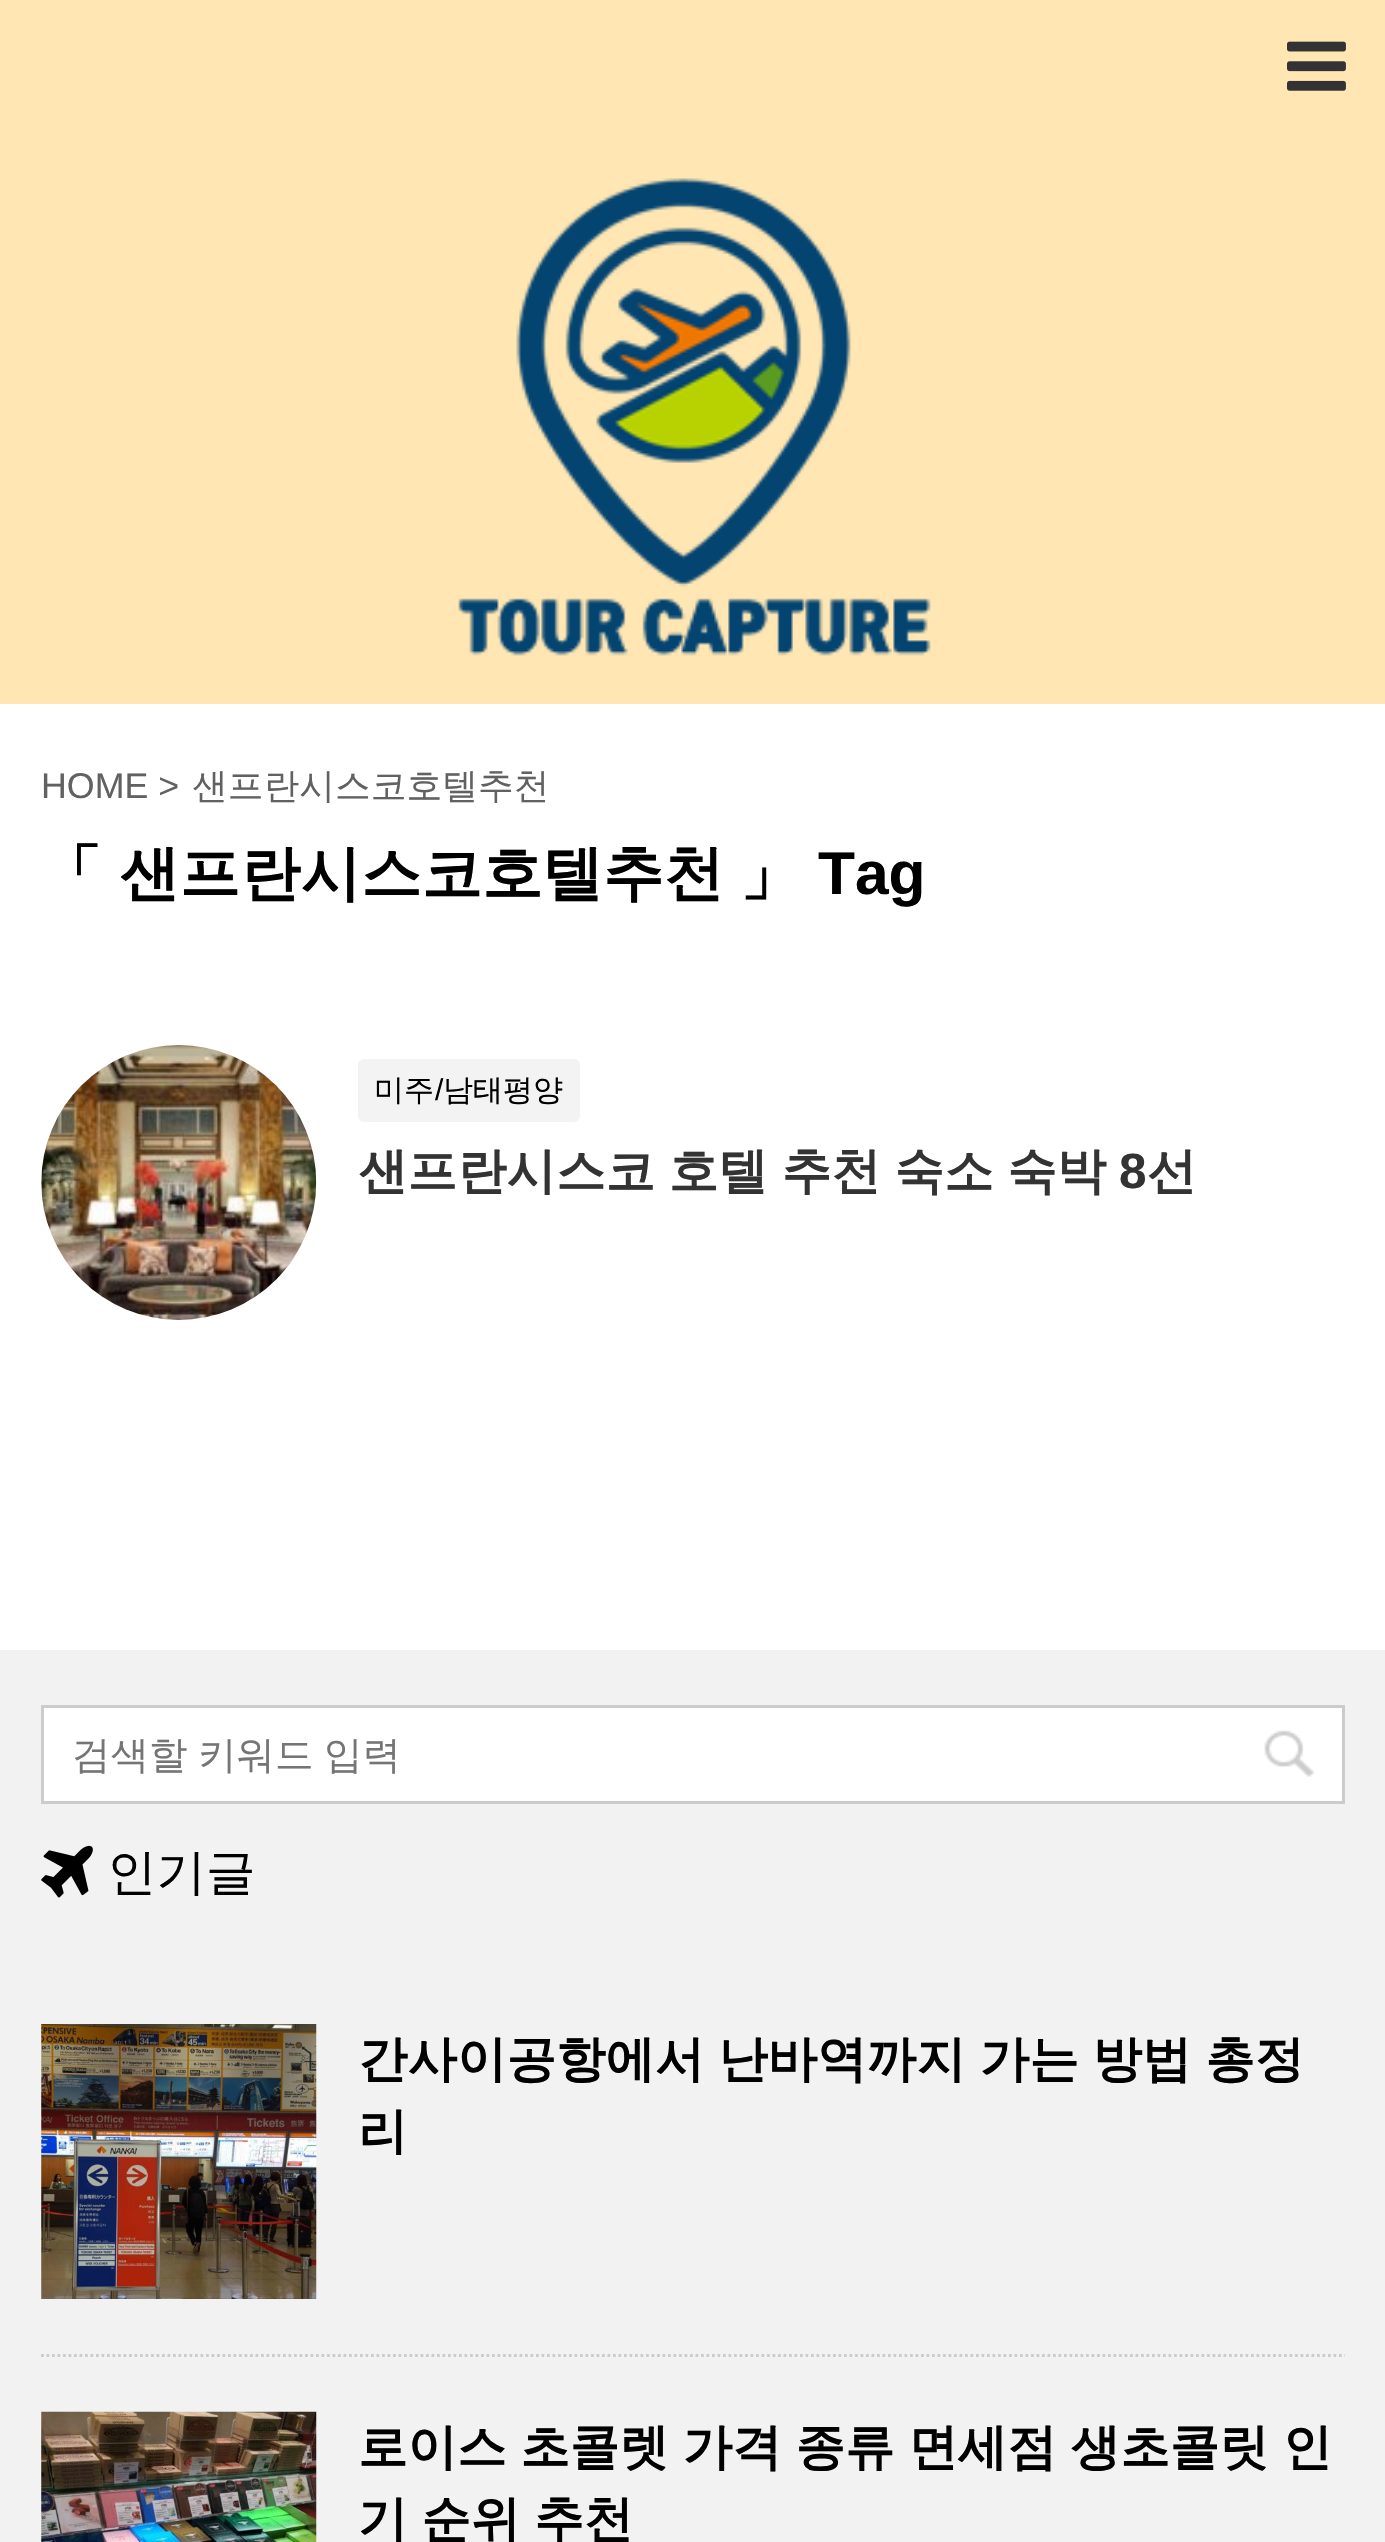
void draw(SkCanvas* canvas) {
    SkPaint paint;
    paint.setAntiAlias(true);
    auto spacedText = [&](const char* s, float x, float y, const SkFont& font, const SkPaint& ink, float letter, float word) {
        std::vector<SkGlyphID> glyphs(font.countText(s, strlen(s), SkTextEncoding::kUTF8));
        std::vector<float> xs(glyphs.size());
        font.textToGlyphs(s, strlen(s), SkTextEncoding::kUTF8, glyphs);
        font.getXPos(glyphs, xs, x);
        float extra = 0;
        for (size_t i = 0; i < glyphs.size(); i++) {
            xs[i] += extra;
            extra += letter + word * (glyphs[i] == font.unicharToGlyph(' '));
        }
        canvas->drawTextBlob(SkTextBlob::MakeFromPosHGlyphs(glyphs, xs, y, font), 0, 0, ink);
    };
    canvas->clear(0xFFF2F2F2);
    paint.setColor(0xFFFFE6B3);
    canvas->drawRect(SkRect::MakeXYWH(0, 0, 1385, 704), paint);
    canvas->drawImageRect(SkImages::DeferredFromEncodedData(SkData::MakeFromFileName("img1.png")), SkRect::MakeXYWH(1287, 41, 59, 50), SkSamplingOptions());
    canvas->drawImageRect(SkImages::DeferredFromEncodedData(SkData::MakeFromFileName("img2.png")), SkRect::MakeXYWH(458, 178, 473, 478), SkSamplingOptions());
    paint.setColor(0xFFFFFFFF);
    canvas->drawRect(SkRect::MakeXYWH(0, 704, 1385, 946), paint);
    SkFont font1(fontMgr->matchFamilyStyle("Liberation Sans", SkFontStyle::Normal()), 35.75f);
    font1.setSubpixel(true);
    paint.setColor(0xFF616161);
    canvas->drawString("HOME >", 41, 798, font1, paint);
    SkFont font2(fontMgr->matchFamilyStyle("WenQuanYi Zen Hei", SkFontStyle(500, SkFontStyle::kNormal_Width, SkFontStyle::kUpright_Slant)), 35.75f);
    font2.setSubpixel(true);
    canvas->drawString("샌프란시스코호텔추천", 192, 798, font2, paint);
    SkFont font3(fontMgr->matchFamilyStyle("WenQuanYi Zen Hei", SkFontStyle::Bold()), 60.5f);
    font3.setSubpixel(true);
    paint.setColor(0xFF000000);
    canvas->drawString("「", 41, 894, font3, paint);
    canvas->drawString("샌프란시스코호텔추천", 119, 894, font3, paint);
    canvas->drawString("」", 740, 894, font3, paint);
    SkFont font4(fontMgr->matchFamilyStyle("Liberation Sans", SkFontStyle::Bold()), 60.5f);
    font4.setSubpixel(true);
    canvas->drawString("Tag", 818, 894, font4, paint);
    canvas->drawImageRect(SkImages::DeferredFromEncodedData(SkData::MakeFromFileName("img3.png")), SkRect::MakeXYWH(41, 1045, 276, 275), SkSamplingOptions());
    paint.setColor(0xFFF3F3F3);
    canvas->drawRoundRect(SkRect::MakeXYWH(358, 1059, 222, 63), 6, 6, paint);
    SkFont font5(fontMgr->matchFamilyStyle("WenQuanYi Zen Hei", SkFontStyle(500, SkFontStyle::kNormal_Width, SkFontStyle::kUpright_Slant)), 30);
    font5.setSubpixel(true);
    paint.setColor(0xFF000000);
    canvas->drawString("미주", 374, 1100, font5, paint);
    SkFont font6(fontMgr->matchFamilyStyle("Liberation Sans", SkFontStyle::Normal()), 30);
    font6.setSubpixel(true);
    canvas->drawString("/", 435, 1100, font6, paint);
    canvas->drawString("남태평양", 443, 1100, font5, paint);
    SkFont font7(fontMgr->matchFamilyStyle("WenQuanYi Zen Hei", SkFontStyle::Bold()), 49.5f);
    font7.setSubpixel(true);
    paint.setColor(0xFF333333);
    spacedText("샌프란시스코 호텔 추천 숙소 숙박", 358, 1188, font7, paint, 0, -1);
    SkFont font8(fontMgr->matchFamilyStyle("Liberation Sans", SkFontStyle::Bold()), 49.5f);
    font8.setSubpixel(true);
    canvas->drawString("8", 1119, 1188, font8, paint);
    canvas->drawString("선", 1147, 1188, font7, paint);
    paint.setStyle(SkPaint::kStroke_Style);
    paint.setStrokeWidth(3);
    paint.setColor(0xFFCCCCCC);
    canvas->drawRect(SkRect::MakeXYWH(42.5f, 1706.5f, 1301, 96), paint);
    paint.setStyle(SkPaint::kFill_Style);
    paint.setColor(0xFFFFFFFF);
    canvas->drawRect(SkRect::MakeXYWH(44, 1708, 1298, 93), paint);
    SkFont font9(fontMgr->matchFamilyStyle("WenQuanYi Zen Hei", SkFontStyle(500, SkFontStyle::kNormal_Width, SkFontStyle::kUpright_Slant)), 38.5f);
    font9.setSubpixel(true);
    paint.setColor(0xFF757575);
    spacedText("검색할 키워드 입력", 72, 1768, font9, paint, 0, -1);
    canvas->drawImageRect(SkImages::DeferredFromEncodedData(SkData::MakeFromFileName("img4.png")), SkRect::MakeXYWH(1264, 1730, 50, 47), SkSamplingOptions());
    canvas->drawImageRect(SkImages::DeferredFromEncodedData(SkData::MakeFromFileName("img5.png")), SkRect::MakeXYWH(41, 1845, 52, 53), SkSamplingOptions());
    SkFont font10(fontMgr->matchFamilyStyle("WenQuanYi Zen Hei", SkFontStyle(500, SkFontStyle::kNormal_Width, SkFontStyle::kUpright_Slant)), 49.5f);
    font10.setSubpixel(true);
    paint.setColor(0xFF000000);
    canvas->drawString("인기글", 107, 1889, font10, paint);
    paint.setStyle(SkPaint::kStroke_Style);
    paint.setStrokeWidth(2.8f);
    paint.setColor(0xFFCCCCCC);
    paint.setPathEffect(SkDashPathEffect::Make({{2.75f, 2.75f}}, 0));
    canvas->drawPath(SkPathBuilder().moveTo(41, 2355.5f).lineTo(1345, 2355.5f).detach(), paint);
    paint.setPathEffect(nullptr);
    canvas->drawImageRect(SkImages::DeferredFromEncodedData(SkData::MakeFromFileName("img6.png")), SkRect::MakeXYWH(41, 2024, 276, 275), SkSamplingOptions());
    paint.setStyle(SkPaint::kFill_Style);
    paint.setColor(0xFF000000);
    spacedText("간사이공항에서 난바역까지 가는 방법 총정", 358, 2076, font7, paint, 0, -1);
    canvas->drawString("리", 358, 2148, font7, paint);
    canvas->drawImageRect(SkImages::DeferredFromEncodedData(SkData::MakeFromFileName("img7.png")), SkRect::MakeXYWH(41, 2411, 276, 131), SkSamplingOptions());
    spacedText("로이스 초콜렛 가격 종류 면세점 생초콜릿 인", 358, 2464, font7, paint, 0, -1);
    spacedText("기 순위 추천", 358, 2536, font7, paint, 0, -1);
}
